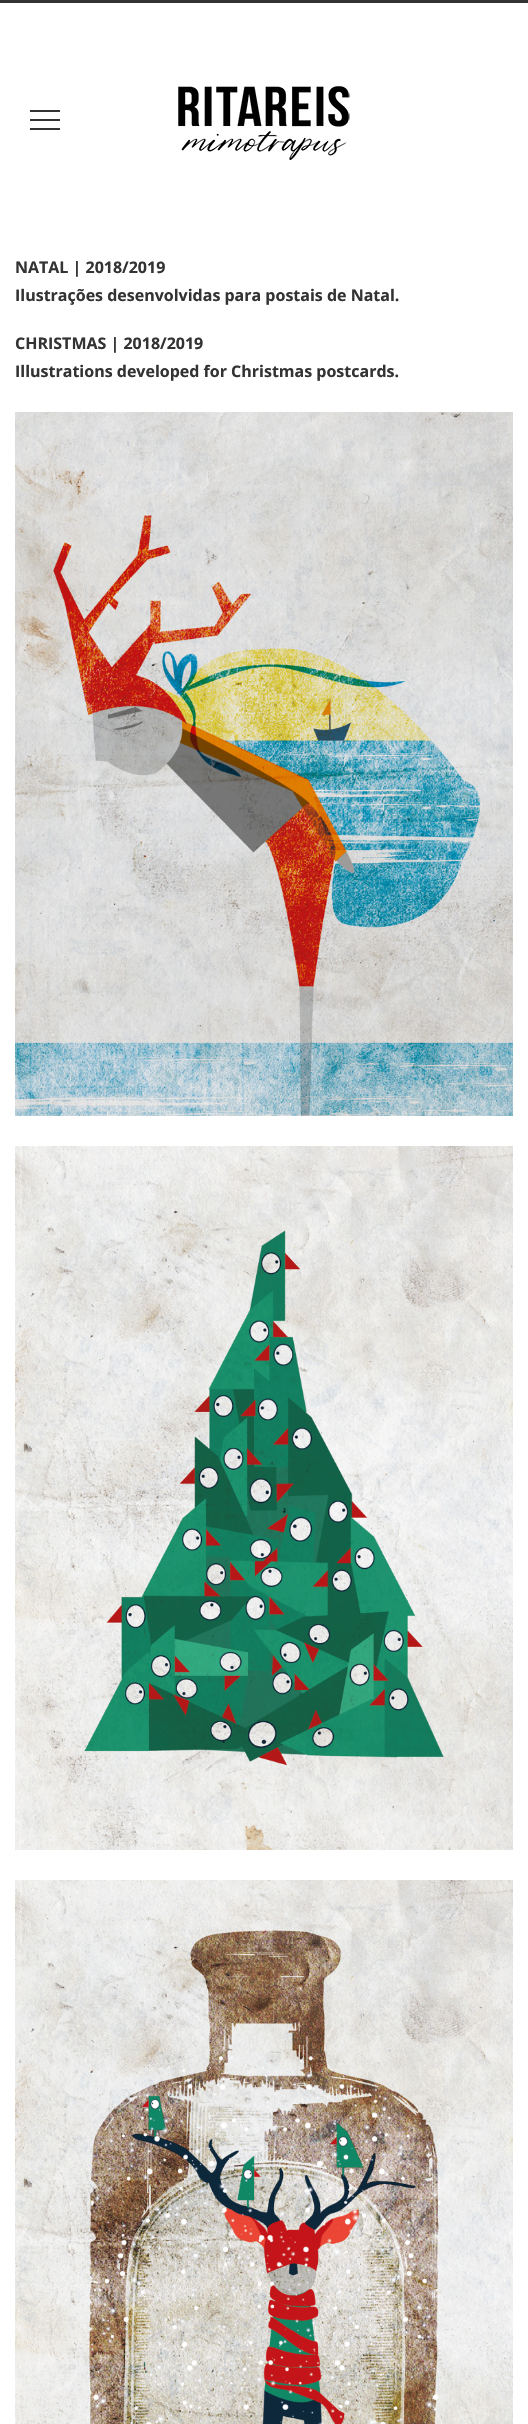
void draw(SkCanvas* canvas) {
    SkPaint paint;
    paint.setAntiAlias(true);
    canvas->clear(0xFFFFFFFF);
    paint.setColor(0xFF333333);
    canvas->drawRect(SkRect::MakeXYWH(0, 0, 528, 3), paint);
    canvas->drawRect(SkRect::MakeXYWH(30, 119, 30, 2), paint);
    canvas->drawRect(SkRect::MakeXYWH(30, 110, 30, 2), paint);
    canvas->drawRect(SkRect::MakeXYWH(30, 128, 30, 2), paint);
    canvas->drawImageRect(SkImages::DeferredFromEncodedData(SkData::MakeFromFileName("img1.png")), SkRect::MakeXYWH(178, 86, 172, 74), SkSamplingOptions());
    SkFont font1(fontMgr->matchFamilyStyle("Open Sans", SkFontStyle::Bold()), 16);
    font1.setSubpixel(true);
    canvas->drawString("NATAL | 2018/2019", 15, 273, font1, paint);
    canvas->drawString("Ilustrações desenvolvidas para postais de Natal.", 15, 301, font1, paint);
    canvas->drawString("CHRISTMAS | 2018/2019", 15, 349, font1, paint);
    canvas->drawString("Illustrations developed for Christmas postcards.", 15, 377, font1, paint);
    canvas->drawImageRect(SkImages::DeferredFromEncodedData(SkData::MakeFromFileName("img2.png")), SkRect::MakeXYWH(15, 412, 498, 704), SkSamplingOptions());
    canvas->drawImageRect(SkImages::DeferredFromEncodedData(SkData::MakeFromFileName("img3.png")), SkRect::MakeXYWH(15, 1146, 498, 704), SkSamplingOptions());
    canvas->drawImageRect(SkImages::DeferredFromEncodedData(SkData::MakeFromFileName("img4.png")), SkRect::MakeXYWH(15, 1880, 498, 544), SkSamplingOptions());
}
